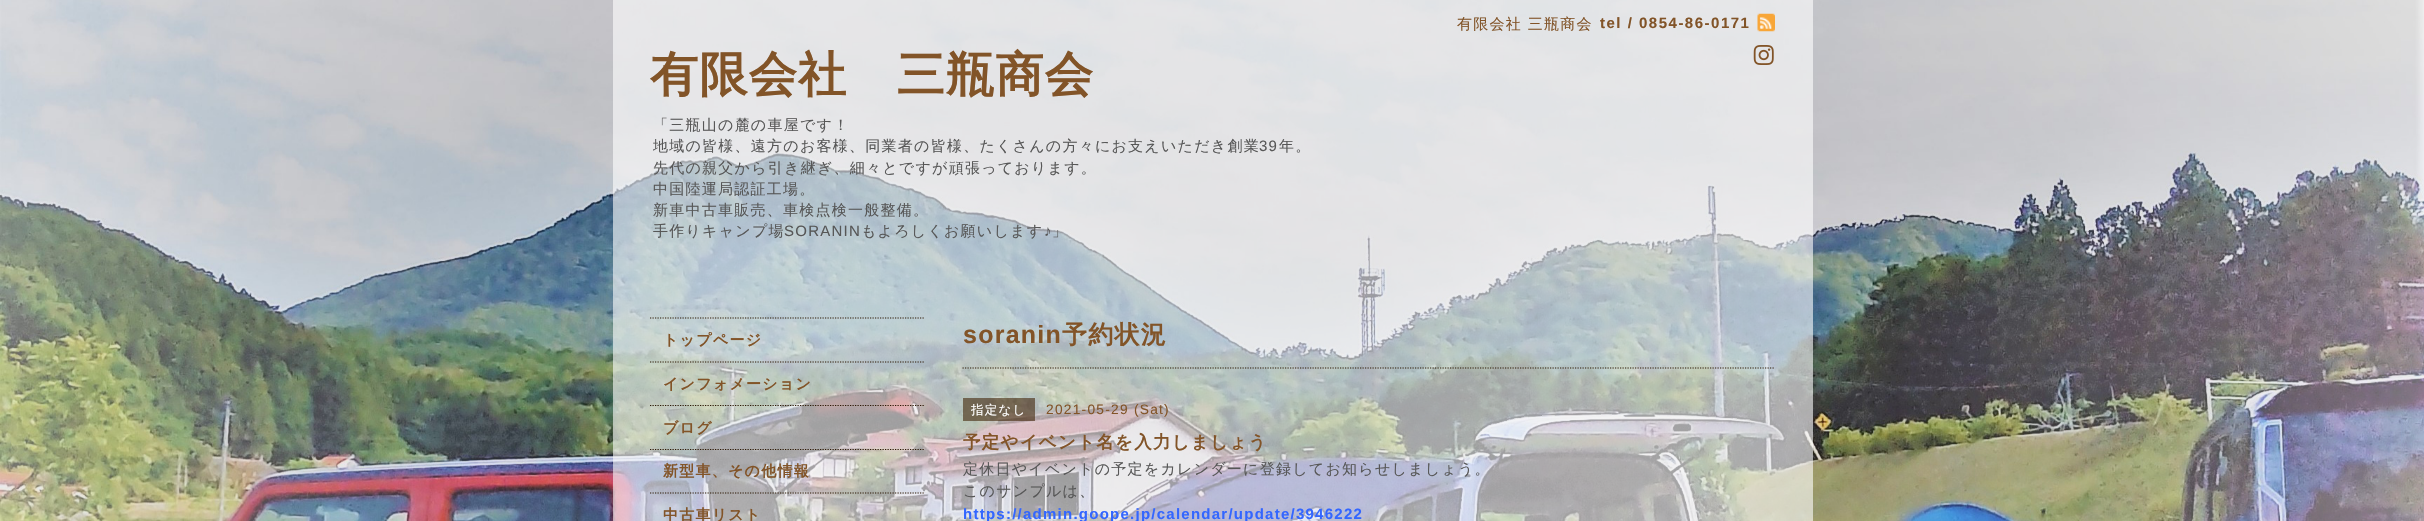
void draw(SkCanvas* canvas) {
    SkPaint paint;
    paint.setAntiAlias(true);
    auto spacedText = [&](const char* s, float x, float y, const SkFont& font, const SkPaint& ink, float letter, float word) {
        std::vector<SkGlyphID> glyphs(font.countText(s, strlen(s), SkTextEncoding::kUTF8));
        std::vector<float> xs(glyphs.size());
        font.textToGlyphs(s, strlen(s), SkTextEncoding::kUTF8, glyphs);
        font.getXPos(glyphs, xs, x);
        float extra = 0;
        for (size_t i = 0; i < glyphs.size(); i++) {
            xs[i] += extra;
            extra += letter + word * (glyphs[i] == font.unicharToGlyph(' '));
        }
        canvas->drawTextBlob(SkTextBlob::MakeFromPosHGlyphs(glyphs, xs, y, font), 0, 0, ink);
    };
    canvas->clear(0xFFFFFFFF);
    canvas->drawImageRect(SkImages::DeferredFromEncodedData(SkData::MakeFromFileName("img1.png")), SkRect::MakeXYWH(0, 0, 2424, 521), SkSamplingOptions());
    paint.setColor(0x99FFFFFF);
    canvas->drawRect(SkRect::MakeXYWH(613, 0, 1200, 521), paint);
    SkFont font1(fontMgr->matchFamilyStyle("WenQuanYi Zen Hei", SkFontStyle(500, SkFontStyle::kNormal_Width, SkFontStyle::kUpright_Slant)), 15);
    font1.setSubpixel(true);
    paint.setColor(0xFF825428);
    spacedText("有限会社 三瓶商会", 1457, 29, font1, paint, 1.25f, 0);
    SkFont font2(fontMgr->matchFamilyStyle("Liberation Sans", SkFontStyle::Bold()), 15);
    font2.setSubpixel(true);
    spacedText("tel / 0854-86-0171", 1600, 28, font2, paint, 1.5f, 0);
    canvas->drawImageRect(SkImages::DeferredFromEncodedData(SkData::MakeFromFileName("img2.png")), SkRect::MakeXYWH(1757, 13, 18, 19), SkSamplingOptions());
    canvas->drawImageRect(SkImages::DeferredFromEncodedData(SkData::MakeFromFileName("img3.png")), SkRect::MakeXYWH(1753, 45, 21, 20), SkSamplingOptions());
    SkFont font3(fontMgr->matchFamilyStyle("WenQuanYi Zen Hei", SkFontStyle::Bold()), 48.1f);
    font3.setSubpixel(true);
    spacedText("有限会社　三瓶商会", 650, 91, font3, paint, 1.25f, 0);
    paint.setColor(0xFF575757);
    spacedText("「三瓶山の麓の車屋です！", 653, 130, font1, paint, 1.25f, 0);
    spacedText("地域の皆様、遠方のお客様、同業者の皆様、たくさんの方々にお支えいただき創業", 653, 151, font1, paint, 1.25f, 0);
    SkFont font4(fontMgr->matchFamilyStyle("Liberation Sans", SkFontStyle::Normal()), 15);
    font4.setSubpixel(true);
    spacedText("39", 1259, 151, font4, paint, 1.25f, 0);
    spacedText("年。", 1279, 151, font1, paint, 1.25f, 0);
    spacedText("先代の親父から引き継ぎ、細々とですが頑張っております。", 653, 173, font1, paint, 1.25f, 0);
    spacedText("中国陸運局認証工場。", 653, 194, font1, paint, 1.25f, 0);
    spacedText("新車中古車販売、車検点検一般整備。", 653, 215, font1, paint, 1.25f, 0);
    spacedText("手作りキャンプ場", 653, 236, font1, paint, 1.25f, 0);
    spacedText("SORANIN", 784, 236, font4, paint, 1.25f, 0);
    spacedText("もよろしくお願いします", 861, 236, font1, paint, 1.25f, 0);
    spacedText("♪", 1044, 236, font4, paint, 1.25f, 0);
    spacedText("」", 1052, 236, font1, paint, 1.25f, 0);
    paint.setStyle(SkPaint::kStroke_Style);
    paint.setStrokeWidth(1.2f);
    paint.setColor(0xFF2D1905);
    paint.setPathEffect(SkDashPathEffect::Make({{1.25f, 1.25f}}, 0));
    canvas->drawPath(SkPathBuilder().moveTo(650, 318).lineTo(925, 318).detach(), paint);
    paint.setPathEffect(nullptr);
    paint.setPathEffect(SkDashPathEffect::Make({{1.25f, 1.25f}}, 0));
    canvas->drawPath(SkPathBuilder().moveTo(650, 362).lineTo(925, 362).detach(), paint);
    paint.setPathEffect(nullptr);
    SkFont font5(fontMgr->matchFamilyStyle("WenQuanYi Zen Hei", SkFontStyle::Bold()), 15);
    font5.setSubpixel(true);
    paint.setStyle(SkPaint::kFill_Style);
    paint.setColor(0xFF825428);
    spacedText("トップページ", 663, 345, font5, paint, 1.25f, 0);
    paint.setStyle(SkPaint::kStroke_Style);
    paint.setColor(0xFF2D1905);
    paint.setPathEffect(SkDashPathEffect::Make({{1.25f, 1.25f}}, 0));
    canvas->drawPath(SkPathBuilder().moveTo(650, 405.5f).lineTo(925, 405.5f).detach(), paint);
    paint.setPathEffect(nullptr);
    paint.setStyle(SkPaint::kFill_Style);
    paint.setColor(0xFF825428);
    spacedText("インフォメーション", 663, 389, font5, paint, 1.25f, 0);
    paint.setStyle(SkPaint::kStroke_Style);
    paint.setColor(0xFF2D1905);
    paint.setPathEffect(SkDashPathEffect::Make({{1.25f, 1.25f}}, 0));
    canvas->drawPath(SkPathBuilder().moveTo(650, 449.5f).lineTo(925, 449.5f).detach(), paint);
    paint.setPathEffect(nullptr);
    paint.setStyle(SkPaint::kFill_Style);
    paint.setColor(0xFF825428);
    spacedText("ブログ", 663, 433, font5, paint, 1.25f, 0);
    paint.setStyle(SkPaint::kStroke_Style);
    paint.setColor(0xFF2D1905);
    paint.setPathEffect(SkDashPathEffect::Make({{1.25f, 1.25f}}, 0));
    canvas->drawPath(SkPathBuilder().moveTo(650, 493).lineTo(925, 493).detach(), paint);
    paint.setPathEffect(nullptr);
    paint.setStyle(SkPaint::kFill_Style);
    paint.setColor(0xFF825428);
    spacedText("新型車、その他情報", 663, 476, font5, paint, 1.25f, 0);
    spacedText("中古車リスト", 663, 520, font5, paint, 1.25f, 0);
    SkFont font6(fontMgr->matchFamilyStyle("Liberation Sans", SkFontStyle::Bold()), 25);
    font6.setSubpixel(true);
    spacedText("soranin", 963, 343, font6, paint, 1.25f, 0);
    SkFont font7(fontMgr->matchFamilyStyle("WenQuanYi Zen Hei", SkFontStyle::Bold()), 25);
    font7.setSubpixel(true);
    spacedText("予約状況", 1062, 343, font7, paint, 1.25f, 0);
    paint.setStyle(SkPaint::kStroke_Style);
    paint.setColor(0xFF2D1905);
    paint.setPathEffect(SkDashPathEffect::Make({{1.25f, 1.25f}}, 0));
    canvas->drawPath(SkPathBuilder().moveTo(962.5f, 368).lineTo(1775, 368).detach(), paint);
    paint.setPathEffect(nullptr);
    paint.setStyle(SkPaint::kFill_Style);
    paint.setColor(0x9943260A);
    canvas->drawRect(SkRect::MakeXYWH(963, 398, 72, 23), paint);
    SkFont font8(fontMgr->matchFamilyStyle("WenQuanYi Zen Hei", SkFontStyle(500, SkFontStyle::kNormal_Width, SkFontStyle::kUpright_Slant)), 12.5f);
    font8.setSubpixel(true);
    paint.setColor(0xFFFFFFFF);
    spacedText("指定なし", 971, 414, font8, paint, 1.25f, 0);
    SkFont font9(fontMgr->matchFamilyStyle("Liberation Sans", SkFontStyle::Normal()), 13.75f);
    font9.setSubpixel(true);
    paint.setColor(0xFF825428);
    spacedText("2021-05-29 (Sat)", 1046, 414, font9, paint, 1.25f, 0);
    SkFont font10(fontMgr->matchFamilyStyle("WenQuanYi Zen Hei", SkFontStyle::Bold()), 17.5f);
    font10.setSubpixel(true);
    spacedText("予定やイベント名を入力しましょう", 963, 448, font10, paint, 1.25f, 0);
    paint.setColor(0xFF575757);
    spacedText("定休日やイベントの予定をカレンダーに登録してお知らせしましょう。", 963, 474, font1, paint, 1.25f, 0);
    spacedText("このサンプルは、", 963, 496, font1, paint, 1.25f, 0);
    paint.setColor(0xFF3366FF);
    spacedText("https://admin.goope.jp/calendar/update/3946222", 963, 519, font2, paint, 1.25f, 0);
}
